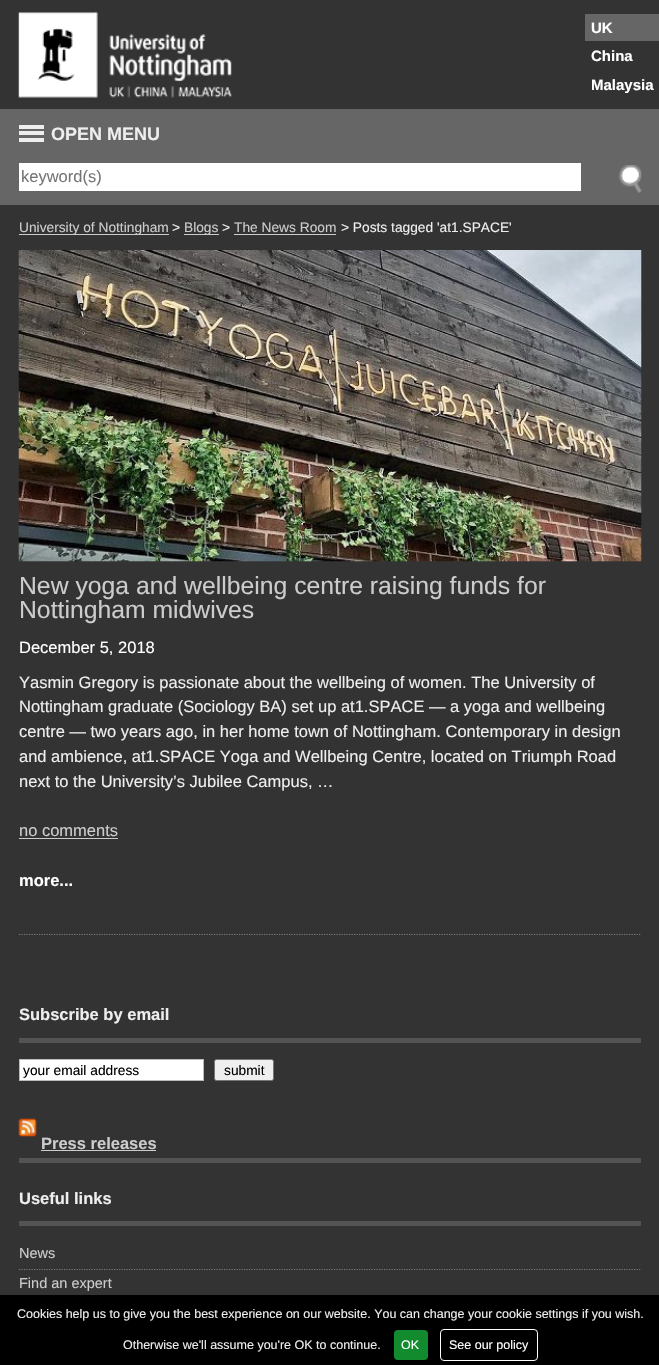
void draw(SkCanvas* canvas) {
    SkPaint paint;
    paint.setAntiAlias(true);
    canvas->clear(0xFF333333);
    canvas->drawImageRect(SkImages::DeferredFromEncodedData(SkData::MakeFromFileName("img1.png")), SkRect::MakeXYWH(18, 12, 214, 86), SkSamplingOptions());
    paint.setColor(0xFF666666);
    canvas->drawRect(SkRect::MakeXYWH(585, 14, 74, 27), paint);
    SkFont font1(fontMgr->matchFamilyStyle("Liberation Sans", SkFontStyle::Bold()), 15);
    font1.setSubpixel(true);
    paint.setColor(0xFFFFFFFF);
    canvas->drawString("UK", 591, 33, font1, paint);
    canvas->drawString("China", 591, 61, font1, paint);
    canvas->drawString("Malaysia", 591, 90, font1, paint);
    paint.setColor(0xFF666666);
    canvas->drawRect(SkRect::MakeXYWH(0, 109, 659, 96), paint);
    paint.setColor(0xFFEEEEEE);
    canvas->drawRect(SkRect::MakeXYWH(19, 125, 25, 4), paint);
    canvas->drawRect(SkRect::MakeXYWH(19, 131, 25, 4), paint);
    canvas->drawRect(SkRect::MakeXYWH(19, 138, 25, 4), paint);
    SkFont font2(fontMgr->matchFamilyStyle("Liberation Sans", SkFontStyle::Bold()), 18);
    font2.setSubpixel(true);
    canvas->drawString("OPEN MENU", 51, 140, font2, paint);
    paint.setColor(0xFFFFFFFF);
    canvas->drawRect(SkRect::MakeXYWH(19, 163, 562, 28), paint);
    SkFont font3(fontMgr->matchFamilyStyle("Liberation Sans", SkFontStyle::Normal()), 16.5f);
    font3.setSubpixel(true);
    paint.setColor(0xFF757575);
    canvas->drawString("keyword(s)", 21, 182, font3, paint);
    canvas->drawImageRect(SkImages::DeferredFromEncodedData(SkData::MakeFromFileName("img2.png")), SkRect::MakeXYWH(618, 165, 24, 28), SkSamplingOptions());
    paint.setColor(0xFFCCCCCC);
    canvas->drawRect(SkRect::MakeXYWH(19, 234, 150, 1), paint);
    SkFont font4(fontMgr->matchFamilyStyle("Liberation Sans", SkFontStyle::Normal()), 13.75f);
    font4.setSubpixel(true);
    canvas->drawString("University of Nottingham", 19, 232, font4, paint);
    paint.setColor(0xFFEEEEEE);
    canvas->drawString(">", 172, 232, font4, paint);
    paint.setColor(0xFFCCCCCC);
    canvas->drawRect(SkRect::MakeXYWH(184, 234, 35, 1), paint);
    canvas->drawString("Blogs", 184, 232, font4, paint);
    paint.setColor(0xFFEEEEEE);
    canvas->drawString(">", 222, 232, font4, paint);
    paint.setColor(0xFFCCCCCC);
    canvas->drawString("The News Room", 234, 232, font4, paint);
    canvas->drawRect(SkRect::MakeXYWH(234, 234, 102, 1), paint);
    paint.setColor(0xFFEEEEEE);
    canvas->drawString("> Posts tagged 'at1.SPACE'", 341, 232, font4, paint);
    paint.setStyle(SkPaint::kStroke_Style);
    paint.setStrokeWidth(1.2f);
    paint.setColor(0xFF7B7B7B);
    paint.setPathEffect(SkDashPathEffect::Make({{1.25f, 1.25f}}, 0));
    canvas->drawPath(SkPathBuilder().moveTo(19, 934.5f).lineTo(641, 934.5f).detach(), paint);
    paint.setPathEffect(nullptr);
    canvas->drawImageRect(SkImages::DeferredFromEncodedData(SkData::MakeFromFileName("img3.png")), SkRect::MakeXYWH(18, 250, 624, 312), SkSamplingOptions());
    SkFont font5(fontMgr->matchFamilyStyle("Liberation Sans", SkFontStyle::Normal()), 24.75f);
    font5.setSubpixel(true);
    paint.setStyle(SkPaint::kFill_Style);
    paint.setColor(0xFFCCCCCC);
    canvas->drawString("New yoga and wellbeing centre raising funds for", 19, 594, font5, paint);
    canvas->drawString("Nottingham midwives", 19, 618, font5, paint);
    paint.setColor(0xFFFFFFFF);
    canvas->drawString("December 5, 2018", 19, 653, font3, paint);
    paint.setColor(0xFFEEEEEE);
    canvas->drawString("Yasmin Gregory is passionate about the wellbeing of women. The University of", 19, 688, font3, paint);
    canvas->drawString("Nottingham graduate (Sociology BA) set up at1.SPACE — a yoga and wellbeing", 19, 712, font3, paint);
    canvas->drawString("centre — two years ago, in her home town of Nottingham. Contemporary in design", 19, 737, font3, paint);
    canvas->drawString("and ambience, at1.SPACE Yoga and Wellbeing Centre, located on Triumph Road", 19, 762, font3, paint);
    canvas->drawString("next to the University’s Jubilee Campus, …", 19, 787, font3, paint);
    paint.setColor(0xFFCCCCCC);
    canvas->drawString("no comments", 19, 836, font3, paint);
    canvas->drawRect(SkRect::MakeXYWH(19, 838, 99, 1), paint);
    SkFont font6(fontMgr->matchFamilyStyle("Liberation Sans", SkFontStyle::Bold()), 16.5f);
    font6.setSubpixel(true);
    paint.setColor(0xFFFFFFFF);
    canvas->drawString("more...", 19, 886, font6, paint);
    paint.setColor(0xFF535353);
    canvas->drawRect(SkRect::MakeXYWH(19, 1038, 622, 5), paint);
    paint.setColor(0xFFEEEEEE);
    canvas->drawString("Subscribe by email", 19, 1020, font6, paint);
    paint.setColor(0xFFFFFFFF);
    canvas->drawRect(SkRect::MakeXYWH(19.5f, 1059.5f, 184, 21), paint);
    paint.setStyle(SkPaint::kStroke_Style);
    paint.setStrokeWidth(1);
    paint.setColor(0xFFBBBBBB);
    canvas->drawRect(SkRect::MakeXYWH(19.5f, 1059.5f, 184, 21), paint);
    paint.setStyle(SkPaint::kFill_Style);
    paint.setColor(0xFF000000);
    canvas->drawString("your email address", 23, 1075, font4, paint);
    paint.setColor(0xFFEFEFEF);
    canvas->drawRoundRect(SkRect::MakeXYWH(214.5f, 1059.5f, 59, 21), 2, 2, paint);
    paint.setStyle(SkPaint::kStroke_Style);
    paint.setColor(0xFF767676);
    canvas->drawRoundRect(SkRect::MakeXYWH(214.5f, 1059.5f, 59, 21), 2, 2, paint);
    paint.setStyle(SkPaint::kFill_Style);
    paint.setColor(0xFF000000);
    canvas->drawString("submit", 224, 1075, font4, paint);
    paint.setColor(0xFF535353);
    canvas->drawRect(SkRect::MakeXYWH(19, 1158, 622, 5), paint);
    canvas->drawImageRect(SkImages::DeferredFromEncodedData(SkData::MakeFromFileName("img4.png")), SkRect::MakeXYWH(18, 1118, 19, 19), SkSamplingOptions());
    paint.setColor(0xFFCCCCCC);
    canvas->drawString("Press releases", 41, 1149, font6, paint);
    canvas->drawRect(SkRect::MakeXYWH(41, 1150, 115, 1), paint);
    paint.setColor(0xFF535353);
    canvas->drawRect(SkRect::MakeXYWH(19, 1221, 622, 5), paint);
    paint.setColor(0xFFEEEEEE);
    canvas->drawString("Useful links", 19, 1204, font6, paint);
    paint.setStyle(SkPaint::kStroke_Style);
    paint.setStrokeWidth(1.2f);
    paint.setColor(0xFF7B7B7B);
    paint.setPathEffect(SkDashPathEffect::Make({{1.25f, 1.25f}}, 0));
    canvas->drawPath(SkPathBuilder().moveTo(19, 1269.5f).lineTo(641, 1269.5f).detach(), paint);
    paint.setPathEffect(nullptr);
    SkFont font7(fontMgr->matchFamilyStyle("Liberation Sans", SkFontStyle::Normal()), 14.5f);
    font7.setSubpixel(true);
    paint.setStyle(SkPaint::kFill_Style);
    paint.setColor(0xFFCCCCCC);
    canvas->drawString("News", 19, 1258, font7, paint);
    canvas->drawString("Find an expert", 19, 1288, font7, paint);
    paint.setColor(0xFF000000);
    canvas->drawRect(SkRect::MakeXYWH(0, 1295, 659, 70), paint);
    SkFont font8(fontMgr->matchFamilyStyle("Liberation Sans", SkFontStyle::Normal()), 12.5f);
    font8.setSubpixel(true);
    paint.setColor(0xFFEEEEEE);
    canvas->drawString("Cookies help us to give you the best experience on our website. You can change your cookie settings if you wish.", 17, 1318, font8, paint);
    canvas->drawString("Otherwise we'll assume you're OK to continue.", 123, 1349, font8, paint);
    paint.setColor(0xFF128B2F);
    canvas->drawRoundRect(SkRect::MakeXYWH(394, 1330, 34, 30), 4, 4, paint);
    paint.setColor(0xFFFFFFFF);
    canvas->drawString("OK", 401, 1349, font8, paint);
    paint.setStyle(SkPaint::kStroke_Style);
    paint.setStrokeWidth(1);
    canvas->drawRoundRect(SkRect::MakeXYWH(440.5f, 1329.5f, 97, 31), 3.5f, 3.5f, paint);
    paint.setStyle(SkPaint::kFill_Style);
    canvas->drawString("See our policy", 449, 1349, font8, paint);
}
